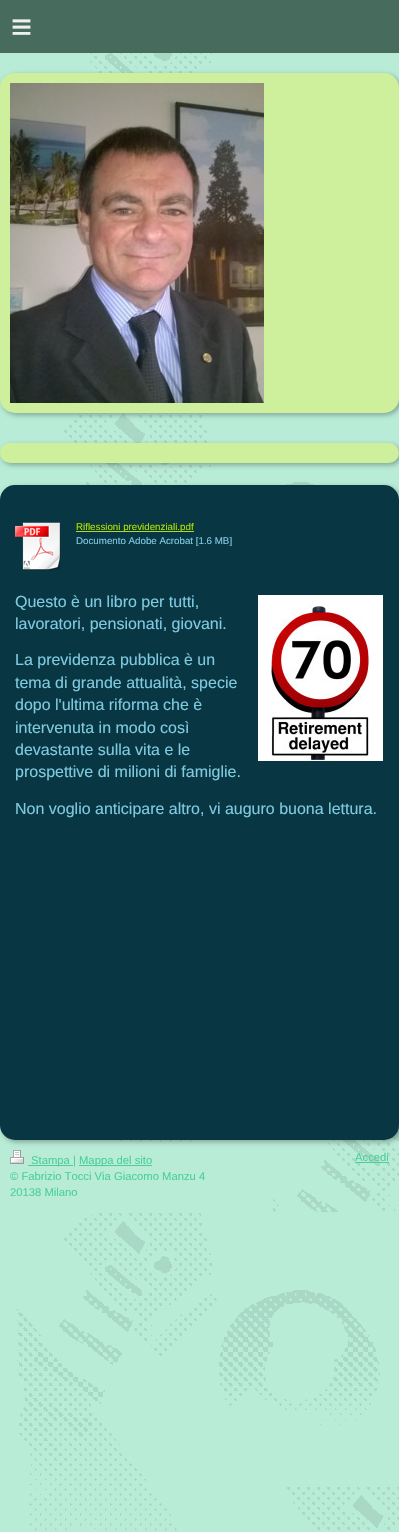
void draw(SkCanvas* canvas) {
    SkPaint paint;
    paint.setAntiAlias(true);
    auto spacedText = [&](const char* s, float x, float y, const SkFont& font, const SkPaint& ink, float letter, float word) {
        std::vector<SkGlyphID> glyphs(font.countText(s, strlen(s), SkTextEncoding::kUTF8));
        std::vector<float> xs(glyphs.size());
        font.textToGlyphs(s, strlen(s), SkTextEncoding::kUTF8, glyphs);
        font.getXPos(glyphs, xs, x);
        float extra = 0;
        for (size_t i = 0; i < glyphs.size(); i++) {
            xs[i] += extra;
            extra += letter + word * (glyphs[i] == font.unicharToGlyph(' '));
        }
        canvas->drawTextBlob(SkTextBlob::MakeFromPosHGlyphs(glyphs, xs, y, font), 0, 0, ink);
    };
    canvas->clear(0xFFB8ECD7);
    canvas->drawImageRect(SkImages::DeferredFromEncodedData(SkData::MakeFromFileName("img1.png")), SkRect::MakeXYWH(17, 53, 382, 1478), SkSamplingOptions());
    paint.setColor(0xFF476C5E);
    canvas->drawRect(SkRect::MakeXYWH(0, 0, 399, 53), paint);
    SkFont font1(fontMgr->matchFamilyStyle("Liberation Sans", SkFontStyle::Normal()), 36);
    font1.setSubpixel(true);
    paint.setColor(0xFFEDF0EF);
    spacedText("≡", 11, 39, font1, paint, 10, 0);
    paint.setColor(0x4D000000);
    paint.setMaskFilter(SkMaskFilter::MakeBlur(kNormal_SkBlurStyle, 2.5f));
    canvas->drawRoundRect(SkRect::MakeXYWH(2, 75, 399, 340), 15, 15, paint);
    paint.setMaskFilter(nullptr);
    paint.setColor(0xFFCEF09D);
    canvas->drawRoundRect(SkRect::MakeXYWH(0, 73, 399, 340), 15, 15, paint);
    canvas->drawImageRect(SkImages::DeferredFromEncodedData(SkData::MakeFromFileName("img2.png")), SkRect::MakeXYWH(10, 83, 254, 320), SkSamplingOptions());
    paint.setColor(0x4D000000);
    paint.setMaskFilter(SkMaskFilter::MakeBlur(kNormal_SkBlurStyle, 2.5f));
    canvas->drawRoundRect(SkRect::MakeXYWH(2, 445, 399, 20), 10, 10, paint);
    paint.setMaskFilter(nullptr);
    paint.setColor(0xFFCEF09D);
    canvas->drawRoundRect(SkRect::MakeXYWH(0, 443, 399, 20), 10, 10, paint);
    paint.setColor(0x4D000000);
    paint.setMaskFilter(SkMaskFilter::MakeBlur(kNormal_SkBlurStyle, 2.5f));
    canvas->drawRoundRect(SkRect::MakeXYWH(2, 487, 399, 655), 15, 15, paint);
    paint.setMaskFilter(nullptr);
    paint.setColor(0xFF083643);
    canvas->drawRoundRect(SkRect::MakeXYWH(0, 485, 399, 655), 15, 15, paint);
    canvas->drawImageRect(SkImages::DeferredFromEncodedData(SkData::MakeFromFileName("img3.png")), SkRect::MakeXYWH(15, 522, 46, 49), SkSamplingOptions());
    paint.setColor(0xFFB1E001);
    canvas->drawRect(SkRect::MakeXYWH(76, 531, 118, 1), paint);
    SkFont font2(fontMgr->matchFamilyStyle("Liberation Sans", SkFontStyle::Normal()), 9.75f);
    font2.setSubpixel(true);
    canvas->drawString("Riflessioni previdenziali.pdf", 76, 530, font2, paint);
    paint.setColor(0xFF7FCAE0);
    canvas->drawString("Documento Adobe Acrobat [1.6 MB]", 76, 544, font2, paint);
    SkFont font3(fontMgr->matchFamilyStyle("Liberation Sans", SkFontStyle::Normal()), 16);
    font3.setSubpixel(true);
    canvas->drawString("Questo è un libro per tutti,", 15, 607, font3, paint);
    canvas->drawString("lavoratori, pensionati, giovani.", 15, 629, font3, paint);
    canvas->drawString("La previdenza pubblica è un", 15, 665, font3, paint);
    canvas->drawString("tema di grande attualità, specie", 15, 688, font3, paint);
    canvas->drawString("dopo l'ultima riforma che è", 15, 710, font3, paint);
    canvas->drawString("intervenuta in modo così", 15, 733, font3, paint);
    canvas->drawString("devastante sulla vita e le", 15, 755, font3, paint);
    canvas->drawString("prospettive di milioni di famiglie.", 15, 777, font3, paint);
    canvas->drawString("Non voglio anticipare altro, vi auguro buona lettura.", 15, 814, font3, paint);
    canvas->drawImageRect(SkImages::DeferredFromEncodedData(SkData::MakeFromFileName("img4.png")), SkRect::MakeXYWH(258, 595, 125, 166), SkSamplingOptions());
    canvas->drawImageRect(SkImages::DeferredFromEncodedData(SkData::MakeFromFileName("img5.png")), SkRect::MakeXYWH(10, 1150, 14, 14), SkSamplingOptions());
    paint.setColor(0xFF4BCF9A);
    canvas->drawRect(SkRect::MakeXYWH(28, 1165, 45, 1), paint);
    SkFont font4(fontMgr->matchFamilyStyle("Liberation Sans", SkFontStyle::Normal()), 11.25f);
    font4.setSubpixel(true);
    canvas->drawString("Stampa |", 31, 1164, font4, paint);
    canvas->drawRect(SkRect::MakeXYWH(79, 1165, 73, 1), paint);
    canvas->drawString("Mappa del sito", 79, 1164, font4, paint);
    canvas->drawString("© Fabrizio Tocci Via Giacomo Manzu 4", 10, 1180, font4, paint);
    canvas->drawString("20138 Milano", 10, 1196, font4, paint);
    canvas->drawString("Accedi", 355, 1161, font4, paint);
    canvas->drawRect(SkRect::MakeXYWH(355, 1162, 34, 1), paint);
}
